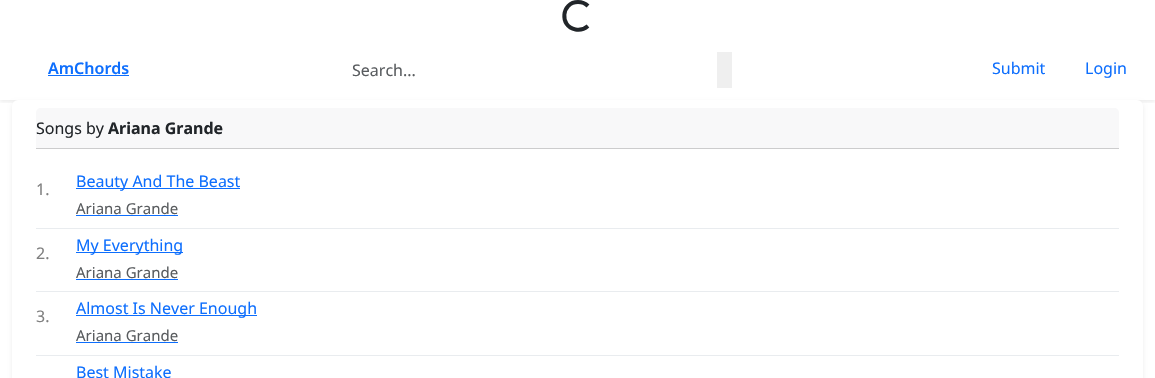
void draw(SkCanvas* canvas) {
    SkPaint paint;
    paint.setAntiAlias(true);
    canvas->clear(0xFFFFFFFF);
    canvas->save();
    canvas->clipRect(SkRect::MakeXYWH(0, 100, 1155, 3));
    paint.setColor(0x12000000);
    paint.setMaskFilter(SkMaskFilter::MakeBlur(kNormal_SkBlurStyle, 2));
    canvas->drawRect(SkRect::MakeXYWH(0, 38, 1155, 64), paint);
    paint.setMaskFilter(nullptr);
    canvas->restore();
    paint.setStyle(SkPaint::kStroke_Style);
    paint.setStrokeWidth(4);
    paint.setColor(0xFF212529);
    canvas->drawPath(SkPathBuilder().moveTo(588, 26).cubicTo(584.5f, 29, 580, 30.5f, 575.5f, 29.5f).cubicTo(559, 26.5f, 561.5f, 2, 578, 2).cubicTo(581.5f, 2, 585.5f, 3.5f, 588, 6).detach(), paint);
    SkFont font1(fontMgr->matchFamilyStyle("Noto Sans", SkFontStyle(600, SkFontStyle::kNormal_Width, SkFontStyle::kUpright_Slant)), 16);
    font1.setSubpixel(true);
    paint.setStyle(SkPaint::kFill_Style);
    paint.setColor(0xFF0D6EFD);
    canvas->drawString("AmChords", 48, 74, font1, paint);
    canvas->drawRect(SkRect::MakeXYWH(48, 75, 81, 1), paint);
    SkFont font2(fontMgr->matchFamilyStyle("Noto Sans", SkFontStyle::Normal()), 16);
    font2.setSubpixel(true);
    paint.setColor(0xFF595C5F);
    canvas->drawString("Search...", 352, 76, font2, paint);
    paint.setColor(0xFFEFEFEF);
    canvas->drawRect(SkRect::MakeXYWH(717, 52, 15, 36), paint);
    paint.setColor(0xFF0D6EFD);
    canvas->drawString("Submit", 992, 74, font2, paint);
    canvas->drawString("Login", 1085, 74, font2, paint);
    paint.setColor(0x12000000);
    paint.setMaskFilter(SkMaskFilter::MakeBlur(kNormal_SkBlurStyle, 2));
    canvas->drawRoundRect(SkRect::MakeXYWH(12, 102, 1131, 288), 6, 6, paint);
    paint.setMaskFilter(nullptr);
    paint.setColor(0xFFFFFFFF);
    canvas->drawRoundRect(SkRect::MakeXYWH(12, 100, 1131, 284), 6, 6, paint);
    paint.setColor(0xFFF8F8F9);
    canvas->drawPath(SkPathBuilder().moveTo(41, 108).lineTo(1114, 108).cubicTo(1117, 108, 1119, 110, 1119, 113).lineTo(1119, 149).lineTo(36, 149).lineTo(36, 113).cubicTo(36, 110, 38, 108, 41, 108).close().detach(), paint);
    paint.setColor(0xFFCCCCCD);
    canvas->drawRect(SkRect::MakeXYWH(36, 148, 1083, 1), paint);
    paint.setColor(0xFF212529);
    canvas->drawString("Songs by", 36, 134, font2, paint);
    SkFont font3(fontMgr->matchFamilyStyle("Noto Sans", SkFontStyle::Bold()), 16);
    font3.setSubpixel(true);
    canvas->drawString("Ariana Grande", 108, 134, font3, paint);
    paint.setColor(0xFFE9ECEF);
    canvas->drawRect(SkRect::MakeXYWH(36, 228, 1083, 1), paint);
    paint.setColor(0xFF808080);
    canvas->drawString("1.", 36, 195, font2, paint);
    paint.setColor(0xFF0D6EFD);
    canvas->drawRect(SkRect::MakeXYWH(76, 188, 164, 1), paint);
    canvas->drawString("Beauty And The Beast", 76, 187, font2, paint);
    SkFont font4(fontMgr->matchFamilyStyle("Noto Sans", SkFontStyle::Normal()), 15);
    font4.setSubpixel(true);
    paint.setColor(0xFF595C5F);
    canvas->drawString("Ariana Grande", 76, 214, font4, paint);
    paint.setColor(0xFF0D6EFD);
    canvas->drawRect(SkRect::MakeXYWH(76, 215, 102, 1), paint);
    paint.setColor(0xFFE9ECEF);
    canvas->drawRect(SkRect::MakeXYWH(36, 291, 1083, 1), paint);
    paint.setColor(0xFF808080);
    canvas->drawString("2.", 36, 259, font2, paint);
    paint.setColor(0xFF0D6EFD);
    canvas->drawRect(SkRect::MakeXYWH(76, 252, 107, 1), paint);
    canvas->drawString("My Everything", 76, 251, font2, paint);
    paint.setColor(0xFF595C5F);
    canvas->drawString("Ariana Grande", 76, 278, font4, paint);
    paint.setColor(0xFF0D6EFD);
    canvas->drawRect(SkRect::MakeXYWH(76, 279, 102, 1), paint);
    paint.setColor(0xFFE9ECEF);
    canvas->drawRect(SkRect::MakeXYWH(36, 355, 1083, 1), paint);
    paint.setColor(0xFF808080);
    canvas->drawString("3.", 36, 322, font2, paint);
    paint.setColor(0xFF0D6EFD);
    canvas->drawRect(SkRect::MakeXYWH(76, 315, 181, 1), paint);
    canvas->drawString("Almost Is Never Enough", 76, 314, font2, paint);
    paint.setColor(0xFF595C5F);
    canvas->drawString("Ariana Grande", 76, 341, font4, paint);
    paint.setColor(0xFF0D6EFD);
    canvas->drawRect(SkRect::MakeXYWH(76, 342, 102, 1), paint);
    canvas->drawString("Best Mistake", 76, 378, font2, paint);
}
